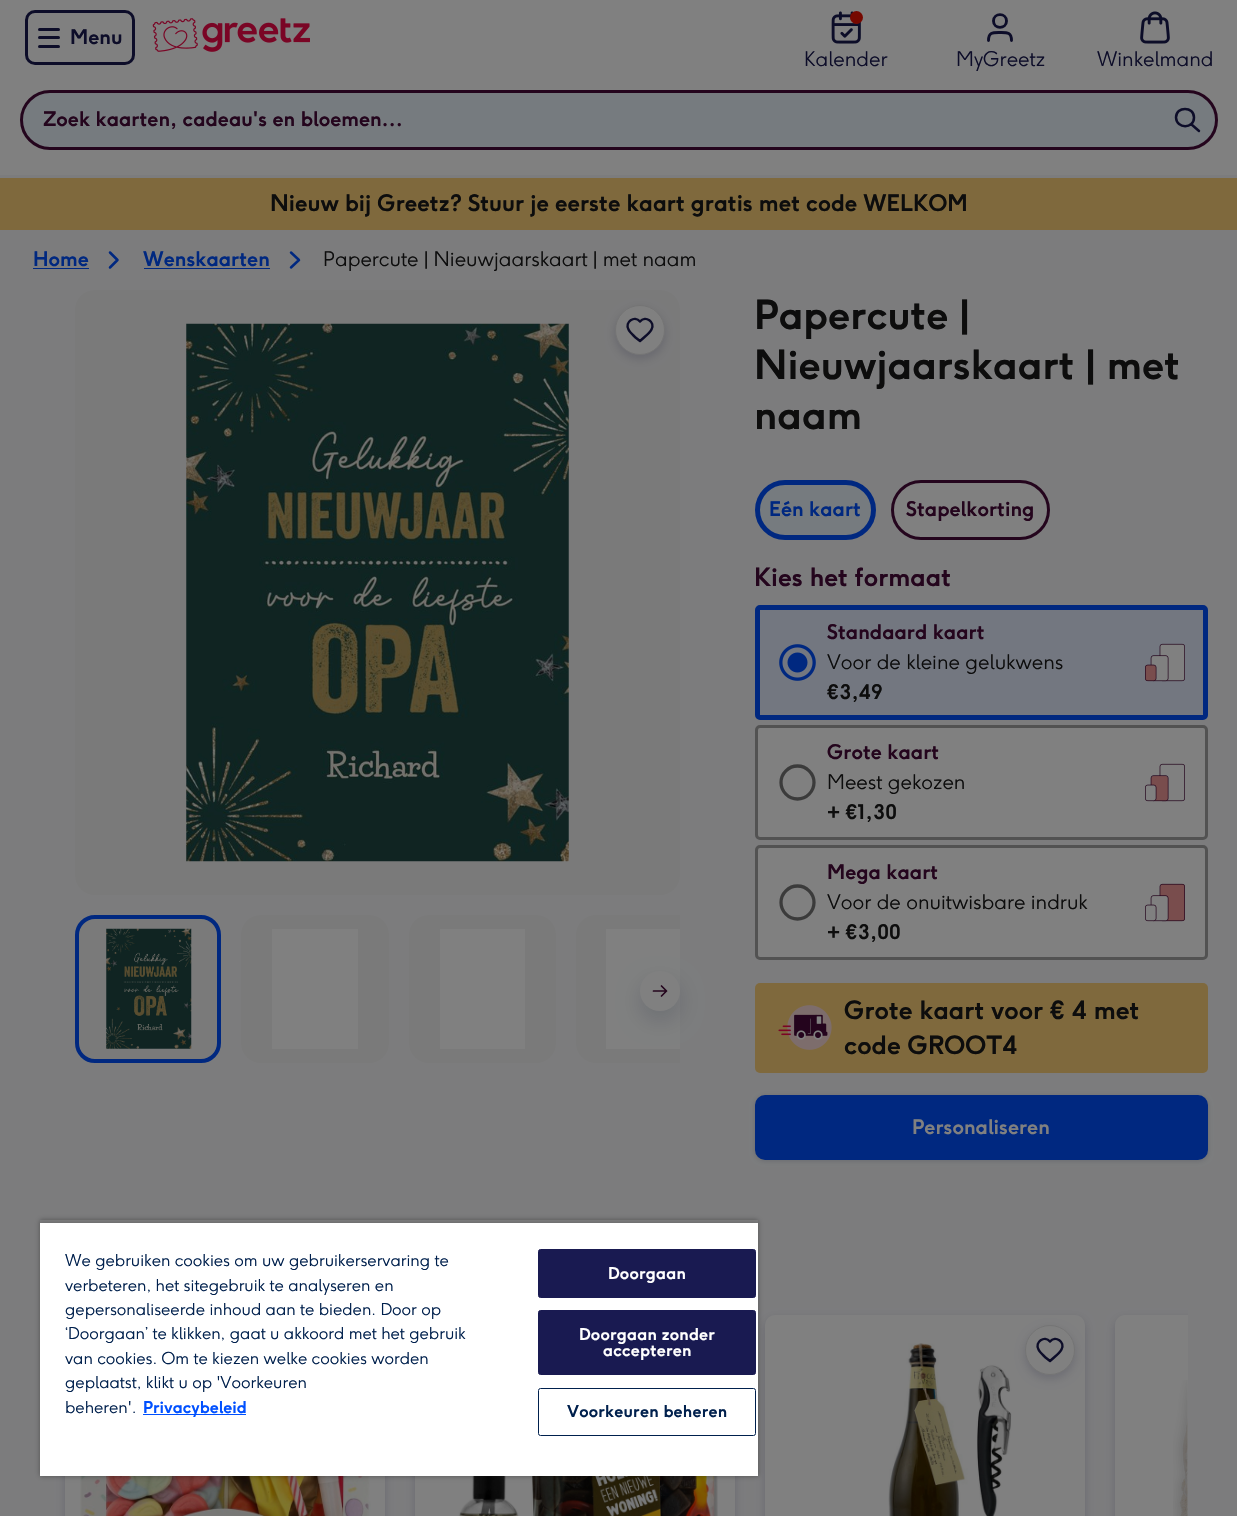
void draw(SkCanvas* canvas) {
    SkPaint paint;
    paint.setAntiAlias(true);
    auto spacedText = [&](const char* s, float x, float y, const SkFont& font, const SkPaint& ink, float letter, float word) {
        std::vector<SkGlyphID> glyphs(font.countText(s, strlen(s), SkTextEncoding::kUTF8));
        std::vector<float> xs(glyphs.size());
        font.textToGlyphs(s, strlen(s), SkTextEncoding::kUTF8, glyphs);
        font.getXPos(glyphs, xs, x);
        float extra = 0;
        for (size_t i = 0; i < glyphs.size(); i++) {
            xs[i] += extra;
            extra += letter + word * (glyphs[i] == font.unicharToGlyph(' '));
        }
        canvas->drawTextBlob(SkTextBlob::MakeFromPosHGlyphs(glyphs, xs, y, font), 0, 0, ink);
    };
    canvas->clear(0xFF7C7C7D);
    paint.setColor(0xFF808080);
    canvas->drawRect(SkRect::MakeXYWH(0, 0, 1237, 175), paint);
    paint.setStyle(SkPaint::kStroke_Style);
    paint.setStrokeWidth(3);
    paint.setColor(0xFF0D0D29);
    canvas->drawRoundRect(SkRect::MakeXYWH(26.5f, 11.5f, 107, 52), 8.5f, 8.5f, paint);
    paint.setStyle(SkPaint::kFill_Style);
    canvas->drawRoundRect(SkRect::MakeXYWH(38, 28, 22, 3), 1.5f, 1.5f, paint);
    canvas->drawRoundRect(SkRect::MakeXYWH(38, 36, 22, 3), 1.5f, 1.5f, paint);
    canvas->drawRoundRect(SkRect::MakeXYWH(38, 45, 22, 3), 1.5f, 1.5f, paint);
    SkFont font1(fontMgr->matchFamilyStyle("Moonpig", SkFontStyle::Bold()), 20);
    font1.setSubpixel(true);
    canvas->drawString("Menu", 70, 44, font1, paint);
    canvas->drawImageRect(SkImages::DeferredFromEncodedData(SkData::MakeFromFileName("img1.png")), SkRect::MakeXYWH(152, 18, 158, 34), SkSamplingOptions());
    canvas->drawImageRect(SkImages::DeferredFromEncodedData(SkData::MakeFromFileName("img2.png")), SkRect::MakeXYWH(831, 11, 30, 33), SkSamplingOptions());
    paint.setColor(0xFF760800);
    canvas->drawCircle(856.5f, 17.5f, 6.5f, paint);
    SkFont font2(fontMgr->matchFamilyStyle("Moonpig", SkFontStyle(300, SkFontStyle::kNormal_Width, SkFontStyle::kUpright_Slant)), 20);
    font2.setSubpixel(true);
    paint.setColor(0xFF0D0D29);
    canvas->drawString("Kalender", 804, 66, font2, paint);
    paint.setStyle(SkPaint::kStroke_Style);
    paint.setStrokeWidth(2.9f);
    paint.setStrokeCap(SkPaint::kRound_Cap);
    paint.setStrokeJoin(SkPaint::kRound_Join);
    canvas->drawPath(SkPathBuilder().moveTo(1011.5f, 40.5f).cubicTo(1011.5f, 32, 1007, 32.5f, 1000, 32.5f).cubicTo(993, 32.5f, 988.5f, 32, 988.5f, 40.5f).moveTo(1006.5f, 21).cubicTo(1006.5f, 29.5f, 993.5f, 29.5f, 993.5f, 21).cubicTo(993.5f, 12.5f, 1006.5f, 12.5f, 1006.5f, 21).detach(), paint);
    paint.setStyle(SkPaint::kFill_Style);
    canvas->drawString("MyGreetz", 956, 66, font2, paint);
    canvas->drawImageRect(SkImages::DeferredFromEncodedData(SkData::MakeFromFileName("img3.png")), SkRect::MakeXYWH(1140, 11, 30, 33), SkSamplingOptions());
    canvas->drawString("Winkelmand", 1097, 66, font2, paint);
    paint.setColor(0xFF767B7F);
    canvas->drawRoundRect(SkRect::MakeXYWH(21.5f, 91.5f, 1195, 57), 28.5f, 28.5f, paint);
    paint.setStyle(SkPaint::kStroke_Style);
    paint.setStrokeWidth(3);
    paint.setStrokeCap(SkPaint::kButt_Cap);
    paint.setStrokeJoin(SkPaint::kMiter_Join);
    paint.setColor(0xFF24051D);
    canvas->drawRoundRect(SkRect::MakeXYWH(21.5f, 91.5f, 1195, 57), 28.5f, 28.5f, paint);
    paint.setStyle(SkPaint::kFill_Style);
    canvas->drawString("Zoek kaarten, cadeau's en bloemen…", 43, 126, font1, paint);
    paint.setStyle(SkPaint::kStroke_Style);
    paint.setStrokeWidth(2.5f);
    paint.setStrokeCap(SkPaint::kRound_Cap);
    paint.setStrokeJoin(SkPaint::kRound_Join);
    paint.setColor(0xFF0D0D29);
    canvas->drawPath(SkPathBuilder().moveTo(1199, 131).lineTo(1191, 124).moveTo(1194, 117.5f).cubicTo(1194, 129, 1176.5f, 129, 1176, 117.5f).cubicTo(1176, 106, 1194, 106, 1194, 117.5f).detach(), paint);
    paint.setStyle(SkPaint::kFill_Style);
    paint.setColor(0xFF7F693D);
    canvas->drawRect(SkRect::MakeXYWH(0, 178, 1237, 52), paint);
    SkFont font3(fontMgr->matchFamilyStyle("Moonpig", SkFontStyle::Bold()), 22.5f);
    font3.setSubpixel(true);
    paint.setColor(0xFF0D0D0D);
    canvas->drawString("Nieuw bij Greetz? Stuur je eerste kaart gratis met code WELKOM", 270, 211, font3, paint);
    paint.setColor(0xFF002880);
    canvas->drawString("Home", 33, 266, font1, paint);
    canvas->drawRect(SkRect::MakeXYWH(33, 268, 56, 1), paint);
    paint.setStyle(SkPaint::kStroke_Style);
    canvas->drawPath(SkPathBuilder().moveTo(110, 267.5f).lineTo(117.5f, 260).lineTo(110, 252.5f).detach(), paint);
    paint.setStyle(SkPaint::kFill_Style);
    canvas->drawString("Wenskaarten", 143, 266, font1, paint);
    canvas->drawRect(SkRect::MakeXYWH(144, 268, 126, 1), paint);
    paint.setStyle(SkPaint::kStroke_Style);
    canvas->drawPath(SkPathBuilder().moveTo(291, 267.5f).lineTo(299, 260).lineTo(291, 252.5f).detach(), paint);
    paint.setStyle(SkPaint::kFill_Style);
    paint.setColor(0xFF0D0D0D);
    canvas->drawString("Papercute | Nieuwjaarskaart | met naam", 323, 266, font2, paint);
    paint.setColor(0xFF7A7A7A);
    canvas->drawRoundRect(SkRect::MakeXYWH(75, 290, 605, 605), 20, 20, paint);
    canvas->drawImageRect(SkImages::DeferredFromEncodedData(SkData::MakeFromFileName("img4.png")), SkRect::MakeXYWH(186, 323, 383, 539), SkSamplingOptions());
    paint.setColor(0x26000227);
    paint.setMaskFilter(SkMaskFilter::MakeBlur(kNormal_SkBlurStyle, 5));
    canvas->drawRoundRect(SkRect::MakeXYWH(615, 309, 50, 50), 25, 25, paint);
    paint.setMaskFilter(nullptr);
    paint.setColor(0xFF808080);
    canvas->drawCircle(640, 330, 24.5f, paint);
    paint.setStyle(SkPaint::kStroke_Style);
    paint.setStrokeWidth(1);
    paint.setStrokeCap(SkPaint::kButt_Cap);
    paint.setStrokeJoin(SkPaint::kMiter_Join);
    paint.setColor(0xFF747474);
    canvas->drawCircle(640, 330, 24.5f, paint);
    paint.setStrokeWidth(2.5f);
    paint.setStrokeCap(SkPaint::kRound_Cap);
    paint.setStrokeJoin(SkPaint::kRound_Join);
    paint.setColor(0xFF0D0D29);
    canvas->drawPath(SkPathBuilder().moveTo(640, 321.5f).cubicTo(634.5f, 315, 624.5f, 322, 628.5f, 329.5f).cubicTo(630, 332.5f, 633, 335, 635.5f, 337.5f).lineTo(640, 341).lineTo(644, 337.5f).cubicTo(647, 335, 650, 332.5f, 651.5f, 329.5f).cubicTo(655.5f, 322, 645.5f, 315, 640, 321.5f).detach(), paint);
    paint.setStyle(SkPaint::kFill_Style);
    paint.setColor(0xFF7A7A7A);
    canvas->drawRoundRect(SkRect::MakeXYWH(77, 917, 142, 144), 18, 18, paint);
    paint.setStyle(SkPaint::kStroke_Style);
    paint.setStrokeWidth(4);
    paint.setStrokeCap(SkPaint::kButt_Cap);
    paint.setStrokeJoin(SkPaint::kMiter_Join);
    paint.setColor(0xFF002880);
    canvas->drawRoundRect(SkRect::MakeXYWH(77, 917, 142, 144), 18, 18, paint);
    canvas->drawImageRect(SkImages::DeferredFromEncodedData(SkData::MakeFromFileName("img5.png")), SkRect::MakeXYWH(106, 928, 86, 121), SkSamplingOptions());
    paint.setStyle(SkPaint::kFill_Style);
    paint.setColor(0xFF7A7A7A);
    canvas->drawRoundRect(SkRect::MakeXYWH(241, 915, 148, 148), 20, 20, paint);
    paint.setColor(0xFF808080);
    canvas->drawRect(SkRect::MakeXYWH(272, 929, 86, 120), paint);
    paint.setColor(0xFF7A7A7A);
    canvas->drawRoundRect(SkRect::MakeXYWH(409, 915, 147, 148), 20, 20, paint);
    paint.setColor(0xFF808080);
    canvas->drawRect(SkRect::MakeXYWH(440, 929, 85, 120), paint);
    paint.setColor(0xFF7A7A7A);
    canvas->drawPath(SkPathBuilder().moveTo(596, 915).lineTo(680, 915).lineTo(680, 1063).lineTo(596, 1063).cubicTo(585, 1063, 576, 1054, 576, 1043).lineTo(576, 935).cubicTo(576, 924, 585, 915, 596, 915).close().detach(), paint);
    paint.setColor(0xFF808080);
    canvas->drawRect(SkRect::MakeXYWH(606, 929, 74, 120), paint);
    paint.setColor(0x26001027);
    paint.setMaskFilter(SkMaskFilter::MakeBlur(kNormal_SkBlurStyle, 11));
    canvas->drawRoundRect(SkRect::MakeXYWH(640, 981, 40, 40), 20, 20, paint);
    paint.setMaskFilter(nullptr);
    paint.setColor(0xFF808080);
    canvas->drawCircle(660, 991, 20, paint);
    paint.setStyle(SkPaint::kStroke_Style);
    paint.setStrokeWidth(1.7f);
    paint.setStrokeCap(SkPaint::kRound_Cap);
    paint.setStrokeJoin(SkPaint::kRound_Join);
    paint.setColor(0xFF24051D);
    canvas->drawPath(SkPathBuilder().moveTo(653.5f, 991).lineTo(666.5f, 991).moveTo(666.5f, 991).lineTo(661.5f, 986).moveTo(666.5f, 991).lineTo(661.5f, 996).detach(), paint);
    SkFont font4(fontMgr->matchFamilyStyle("Moonpig", SkFontStyle::Bold()), 40);
    font4.setSubpixel(true);
    paint.setStyle(SkPaint::kFill_Style);
    paint.setColor(0xFF0D0D0D);
    canvas->drawString("Papercute |", 754, 329, font4, paint);
    canvas->drawString("Nieuwjaarskaart | met", 754, 379, font4, paint);
    canvas->drawString("naam", 754, 429, font4, paint);
    paint.setColor(0xFF767B7F);
    canvas->drawRoundRect(SkRect::MakeXYWH(757.5f, 482.5f, 116, 55), 27.5f, 27.5f, paint);
    paint.setStyle(SkPaint::kStroke_Style);
    paint.setStrokeWidth(5);
    paint.setStrokeCap(SkPaint::kButt_Cap);
    paint.setStrokeJoin(SkPaint::kMiter_Join);
    paint.setColor(0xFF002880);
    canvas->drawRoundRect(SkRect::MakeXYWH(757.5f, 482.5f, 116, 55), 27.5f, 27.5f, paint);
    paint.setStyle(SkPaint::kFill_Style);
    canvas->drawString("Eén kaart", 769, 516, font1, paint);
    paint.setColor(0xFF808080);
    canvas->drawRoundRect(SkRect::MakeXYWH(892.5f, 481.5f, 156, 57), 28.5f, 28.5f, paint);
    paint.setStyle(SkPaint::kStroke_Style);
    paint.setStrokeWidth(3);
    paint.setColor(0xFF24051D);
    canvas->drawRoundRect(SkRect::MakeXYWH(892.5f, 481.5f, 156, 57), 28.5f, 28.5f, paint);
    paint.setStyle(SkPaint::kFill_Style);
    canvas->drawString("Stapelkorting", 906, 516, font1, paint);
    SkFont font5(fontMgr->matchFamilyStyle("Moonpig", SkFontStyle::Bold()), 25);
    font5.setSubpixel(true);
    canvas->drawString("Kies het formaat", 754, 586, font5, paint);
    paint.setColor(0xFF737780);
    canvas->drawRoundRect(SkRect::MakeXYWH(757.5f, 607.5f, 448, 110), 2.5f, 2.5f, paint);
    paint.setStyle(SkPaint::kStroke_Style);
    paint.setStrokeWidth(5);
    paint.setColor(0xFF002880);
    canvas->drawRoundRect(SkRect::MakeXYWH(757.5f, 607.5f, 448, 110), 2.5f, 2.5f, paint);
    canvas->drawImageRect(SkImages::DeferredFromEncodedData(SkData::MakeFromFileName("img6.png")), SkRect::MakeXYWH(779, 644, 37, 37), SkSamplingOptions());
    paint.setStyle(SkPaint::kFill_Style);
    paint.setColor(0xFF24051D);
    canvas->drawString("Standaard kaart", 827, 639, font1, paint);
    paint.setColor(0xFF0D0D0D);
    canvas->drawString("Voor de kleine gelukwens", 827, 669, font2, paint);
    canvas->drawString("€3,49", 827, 699, font1, paint);
    canvas->drawImageRect(SkImages::DeferredFromEncodedData(SkData::MakeFromFileName("img7.png")), SkRect::MakeXYWH(1145, 643, 40, 39), SkSamplingOptions());
    paint.setColor(0xFF808080);
    canvas->drawRoundRect(SkRect::MakeXYWH(756.5f, 726.5f, 450, 112), 3.5f, 3.5f, paint);
    paint.setStyle(SkPaint::kStroke_Style);
    paint.setStrokeWidth(3);
    paint.setColor(0xFF525252);
    canvas->drawRoundRect(SkRect::MakeXYWH(756.5f, 726.5f, 450, 112), 3.5f, 3.5f, paint);
    paint.setStrokeWidth(3.3f);
    paint.setStrokeCap(SkPaint::kRound_Cap);
    paint.setStrokeJoin(SkPaint::kRound_Join);
    paint.setColor(0xFF3B3B3B);
    canvas->drawPath(SkPathBuilder().moveTo(797.5f, 799).cubicTo(806.5f, 799, 814, 791.5f, 814, 782.5f).cubicTo(814, 773.5f, 806.5f, 766, 797.5f, 766).cubicTo(788.5f, 766, 781, 773.5f, 781, 782.5f).cubicTo(781, 791.5f, 788.5f, 799, 797.5f, 799).detach(), paint);
    paint.setStyle(SkPaint::kFill_Style);
    paint.setColor(0xFF24051D);
    canvas->drawString("Grote kaart", 827, 759, font1, paint);
    paint.setColor(0xFF0D0D0D);
    canvas->drawString("Meest gekozen", 827, 789, font2, paint);
    canvas->drawString("+ €1,30", 827, 819, font1, paint);
    canvas->drawImageRect(SkImages::DeferredFromEncodedData(SkData::MakeFromFileName("img8.png")), SkRect::MakeXYWH(1145, 763, 40, 39), SkSamplingOptions());
    paint.setColor(0xFF808080);
    canvas->drawRoundRect(SkRect::MakeXYWH(756.5f, 846.5f, 450, 112), 3.5f, 3.5f, paint);
    paint.setStyle(SkPaint::kStroke_Style);
    paint.setStrokeWidth(3);
    paint.setStrokeCap(SkPaint::kButt_Cap);
    paint.setStrokeJoin(SkPaint::kMiter_Join);
    paint.setColor(0xFF525252);
    canvas->drawRoundRect(SkRect::MakeXYWH(756.5f, 846.5f, 450, 112), 3.5f, 3.5f, paint);
    paint.setStrokeWidth(3.3f);
    paint.setStrokeCap(SkPaint::kRound_Cap);
    paint.setStrokeJoin(SkPaint::kRound_Join);
    paint.setColor(0xFF3B3B3B);
    canvas->drawPath(SkPathBuilder().moveTo(797.5f, 919).cubicTo(806.5f, 919, 814, 911.5f, 814, 902.5f).cubicTo(814, 893.5f, 806.5f, 886, 797.5f, 886).cubicTo(788.5f, 886, 781, 893.5f, 781, 902.5f).cubicTo(781, 911.5f, 788.5f, 919, 797.5f, 919).detach(), paint);
    paint.setStyle(SkPaint::kFill_Style);
    paint.setColor(0xFF24051D);
    canvas->drawString("Mega kaart", 827, 879, font1, paint);
    paint.setColor(0xFF0D0D0D);
    canvas->drawString("Voor de onuitwisbare indruk", 827, 909, font2, paint);
    canvas->drawString("+ €3,00", 827, 939, font1, paint);
    canvas->drawImageRect(SkImages::DeferredFromEncodedData(SkData::MakeFromFileName("img9.png")), SkRect::MakeXYWH(1145, 883, 40, 39), SkSamplingOptions());
    paint.setColor(0xFF7F693D);
    canvas->drawRoundRect(SkRect::MakeXYWH(755, 983, 453, 90), 5, 5, paint);
    canvas->drawImageRect(SkImages::DeferredFromEncodedData(SkData::MakeFromFileName("img10.png")), SkRect::MakeXYWH(778, 1005, 54, 45), SkSamplingOptions());
    paint.setColor(0xFF0D0D0D);
    canvas->drawString("Grote kaart voor € 4 met", 844, 1019, font5, paint);
    canvas->drawString("code GROOT4", 844, 1054, font5, paint);
    paint.setColor(0x26001027);
    paint.setMaskFilter(SkMaskFilter::MakeBlur(kNormal_SkBlurStyle, 2.5f));
    canvas->drawRoundRect(SkRect::MakeXYWH(755, 1096, 453, 65), 10, 10, paint);
    paint.setMaskFilter(nullptr);
    paint.setColor(0xFF002880);
    canvas->drawRoundRect(SkRect::MakeXYWH(756.5f, 1096.5f, 450, 62), 8.5f, 8.5f, paint);
    paint.setStyle(SkPaint::kStroke_Style);
    paint.setStrokeWidth(3);
    paint.setStrokeCap(SkPaint::kButt_Cap);
    paint.setStrokeJoin(SkPaint::kMiter_Join);
    canvas->drawRoundRect(SkRect::MakeXYWH(756.5f, 1096.5f, 450, 62), 8.5f, 8.5f, paint);
    paint.setStyle(SkPaint::kFill_Style);
    paint.setColor(0xFF808080);
    canvas->drawString("Personaliseren", 912, 1134, font1, paint);
    paint.setColor(0x26000227);
    paint.setMaskFilter(SkMaskFilter::MakeBlur(kNormal_SkBlurStyle, 5));
    canvas->drawRoundRect(SkRect::MakeXYWH(65, 1319, 320, 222), 10, 10, paint);
    paint.setMaskFilter(nullptr);
    paint.setColor(0xFF808080);
    canvas->drawRect(SkRect::MakeXYWH(65, 1476, 320, 40), paint);
    canvas->drawImageRect(SkImages::DeferredFromEncodedData(SkData::MakeFromFileName("img11.png")), SkRect::MakeXYWH(80, 1476, 291, 40), SkSamplingOptions());
    paint.setColor(0x26000227);
    paint.setMaskFilter(SkMaskFilter::MakeBlur(kNormal_SkBlurStyle, 5));
    canvas->drawRoundRect(SkRect::MakeXYWH(415, 1319, 320, 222), 10, 10, paint);
    paint.setMaskFilter(nullptr);
    paint.setColor(0xFF808080);
    canvas->drawRect(SkRect::MakeXYWH(415, 1476, 320, 40), paint);
    canvas->drawImageRect(SkImages::DeferredFromEncodedData(SkData::MakeFromFileName("img12.png")), SkRect::MakeXYWH(455, 1476, 263, 40), SkSamplingOptions());
    paint.setColor(0x26000227);
    paint.setMaskFilter(SkMaskFilter::MakeBlur(kNormal_SkBlurStyle, 5));
    canvas->drawRoundRect(SkRect::MakeXYWH(765, 1319, 320, 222), 10, 10, paint);
    paint.setMaskFilter(nullptr);
    paint.setColor(0xFF808080);
    canvas->drawRoundRect(SkRect::MakeXYWH(765, 1315, 320, 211), 10, 10, paint);
    canvas->drawImageRect(SkImages::DeferredFromEncodedData(SkData::MakeFromFileName("img13.png")), SkRect::MakeXYWH(888, 1343, 124, 173), SkSamplingOptions());
    paint.setColor(0x26000227);
    paint.setMaskFilter(SkMaskFilter::MakeBlur(kNormal_SkBlurStyle, 5));
    canvas->drawRoundRect(SkRect::MakeXYWH(1025, 1329, 50, 50), 25, 25, paint);
    paint.setMaskFilter(nullptr);
    paint.setColor(0xFF808080);
    canvas->drawCircle(1050, 1350, 24.5f, paint);
    paint.setStyle(SkPaint::kStroke_Style);
    paint.setStrokeWidth(1);
    paint.setColor(0xFF747474);
    canvas->drawCircle(1050, 1350, 24.5f, paint);
    paint.setStrokeWidth(2.5f);
    paint.setStrokeCap(SkPaint::kRound_Cap);
    paint.setStrokeJoin(SkPaint::kRound_Join);
    paint.setColor(0xFF0D0D29);
    canvas->drawPath(SkPathBuilder().moveTo(1050, 1341.5f).cubicTo(1044.5f, 1335, 1034.5f, 1342, 1038.5f, 1349.5f).cubicTo(1040, 1352.5f, 1043, 1355, 1045.5f, 1357.5f).lineTo(1050, 1361).lineTo(1054, 1357.5f).cubicTo(1057, 1355, 1060, 1352.5f, 1061.5f, 1349.5f).cubicTo(1065.5f, 1342, 1055.5f, 1335, 1050, 1341.5f).detach(), paint);
    canvas->save();
    canvas->clipRect(SkRect::MakeXYWH(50, 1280, 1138, 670));
    paint.setStyle(SkPaint::kFill_Style);
    paint.setColor(0x26000227);
    paint.setMaskFilter(SkMaskFilter::MakeBlur(kNormal_SkBlurStyle, 5));
    canvas->drawRoundRect(SkRect::MakeXYWH(1115, 1319, 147, 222), 10, 10, paint);
    paint.setMaskFilter(nullptr);
    canvas->restore();
    paint.setColor(0xFF808080);
    canvas->drawPath(SkPathBuilder().moveTo(1125, 1315).lineTo(1188, 1315).lineTo(1188, 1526).lineTo(1125, 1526).cubicTo(1119.5f, 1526, 1115, 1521.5f, 1115, 1516).lineTo(1115, 1325).cubicTo(1115, 1319.5f, 1119.5f, 1315, 1125, 1315).close().detach(), paint);
    canvas->drawImageRect(SkImages::DeferredFromEncodedData(SkData::MakeFromFileName("img14.png")), SkRect::MakeXYWH(1173, 1380, 15, 136), SkSamplingOptions());
    canvas->save();
    canvas->clipPath(SkPathBuilder(SkPathFillType::kEvenOdd).moveTo(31, 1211).lineTo(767, 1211).lineTo(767, 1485).lineTo(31, 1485).close().moveTo(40, 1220).lineTo(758, 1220).lineTo(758, 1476).lineTo(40, 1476).close().detach(), true);
    paint.setColor(0x59000000);
    paint.setMaskFilter(SkMaskFilter::MakeBlur(kNormal_SkBlurStyle, 2.5f));
    canvas->drawRect(SkRect::MakeXYWH(40, 1220, 718, 256), paint);
    paint.setMaskFilter(nullptr);
    canvas->restore();
    canvas->save();
    canvas->clipRect(SkRect::MakeXYWH(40, 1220, 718, 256));
    paint.setColor(0x33000000);
    paint.setMaskFilter(SkMaskFilter::MakeBlur(kNormal_SkBlurStyle, 2.5f));
    canvas->drawRect(SkRect::MakeXYWH(40, 1223, 718, 253), paint);
    paint.setMaskFilter(nullptr);
    canvas->restore();
    paint.setColor(0xFFFFFFFF);
    canvas->drawRect(SkRect::MakeXYWH(40, 1223, 718, 253), paint);
    SkFont font6(fontMgr->matchFamilyStyle("Moonpig", SkFontStyle(300, SkFontStyle::kNormal_Width, SkFontStyle::kUpright_Slant)), 16.25f);
    font6.setSubpixel(true);
    paint.setColor(0xFF00204D);
    canvas->drawString("We gebruiken cookies om uw gebruikerservaring te", 65, 1266, font6, paint);
    canvas->drawString("verbeteren, het sitegebruik te analyseren en", 65, 1291, font6, paint);
    canvas->drawString("gepersonaliseerde inhoud aan te bieden. Door op", 65, 1315, font6, paint);
    canvas->drawString("‘Doorgaan’ te klikken, gaat u akkoord met het gebruik", 65, 1339, font6, paint);
    canvas->drawString("van cookies. Om te kiezen welke cookies worden", 65, 1364, font6, paint);
    canvas->drawString("geplaatst, klikt u op 'Voorkeuren", 65, 1388, font6, paint);
    canvas->drawString("beheren'.", 65, 1413, font6, paint);
    paint.setColor(0xFF0050FF);
    canvas->drawRect(SkRect::MakeXYWH(143, 1414, 103, 1), paint);
    SkFont font7(fontMgr->matchFamilyStyle("Moonpig", SkFontStyle::Bold()), 16.25f);
    font7.setSubpixel(true);
    canvas->drawString("Privacybeleid", 143, 1413, font7, paint);
    paint.setColor(0xFF191A51);
    canvas->drawRoundRect(SkRect::MakeXYWH(538.5f, 1249.5f, 217, 48), 2, 2, paint);
    paint.setStyle(SkPaint::kStroke_Style);
    paint.setStrokeWidth(1);
    paint.setStrokeCap(SkPaint::kButt_Cap);
    paint.setStrokeJoin(SkPaint::kMiter_Join);
    canvas->drawRoundRect(SkRect::MakeXYWH(538.5f, 1249.5f, 217, 48), 2, 2, paint);
    paint.setStyle(SkPaint::kFill_Style);
    paint.setColor(0xFFFFFFFF);
    spacedText("Doorgaan", 608, 1279, font7, paint, 0.2f, 0);
    paint.setColor(0xFF191A51);
    canvas->drawRoundRect(SkRect::MakeXYWH(538.5f, 1310.5f, 217, 64), 2, 2, paint);
    paint.setStyle(SkPaint::kStroke_Style);
    canvas->drawRoundRect(SkRect::MakeXYWH(538.5f, 1310.5f, 217, 64), 2, 2, paint);
    paint.setStyle(SkPaint::kFill_Style);
    paint.setColor(0xFFFFFFFF);
    spacedText("Doorgaan zonder", 579, 1340, font7, paint, 0.2f, 0);
    spacedText("accepteren", 603, 1356, font7, paint, 0.2f, 0);
    paint.setStyle(SkPaint::kStroke_Style);
    paint.setColor(0xFF00204D);
    canvas->drawRoundRect(SkRect::MakeXYWH(538.5f, 1388.5f, 217, 47), 2, 2, paint);
    paint.setStyle(SkPaint::kFill_Style);
    spacedText("Voorkeuren beheren", 567, 1417, font7, paint, 0.2f, 0);
}
